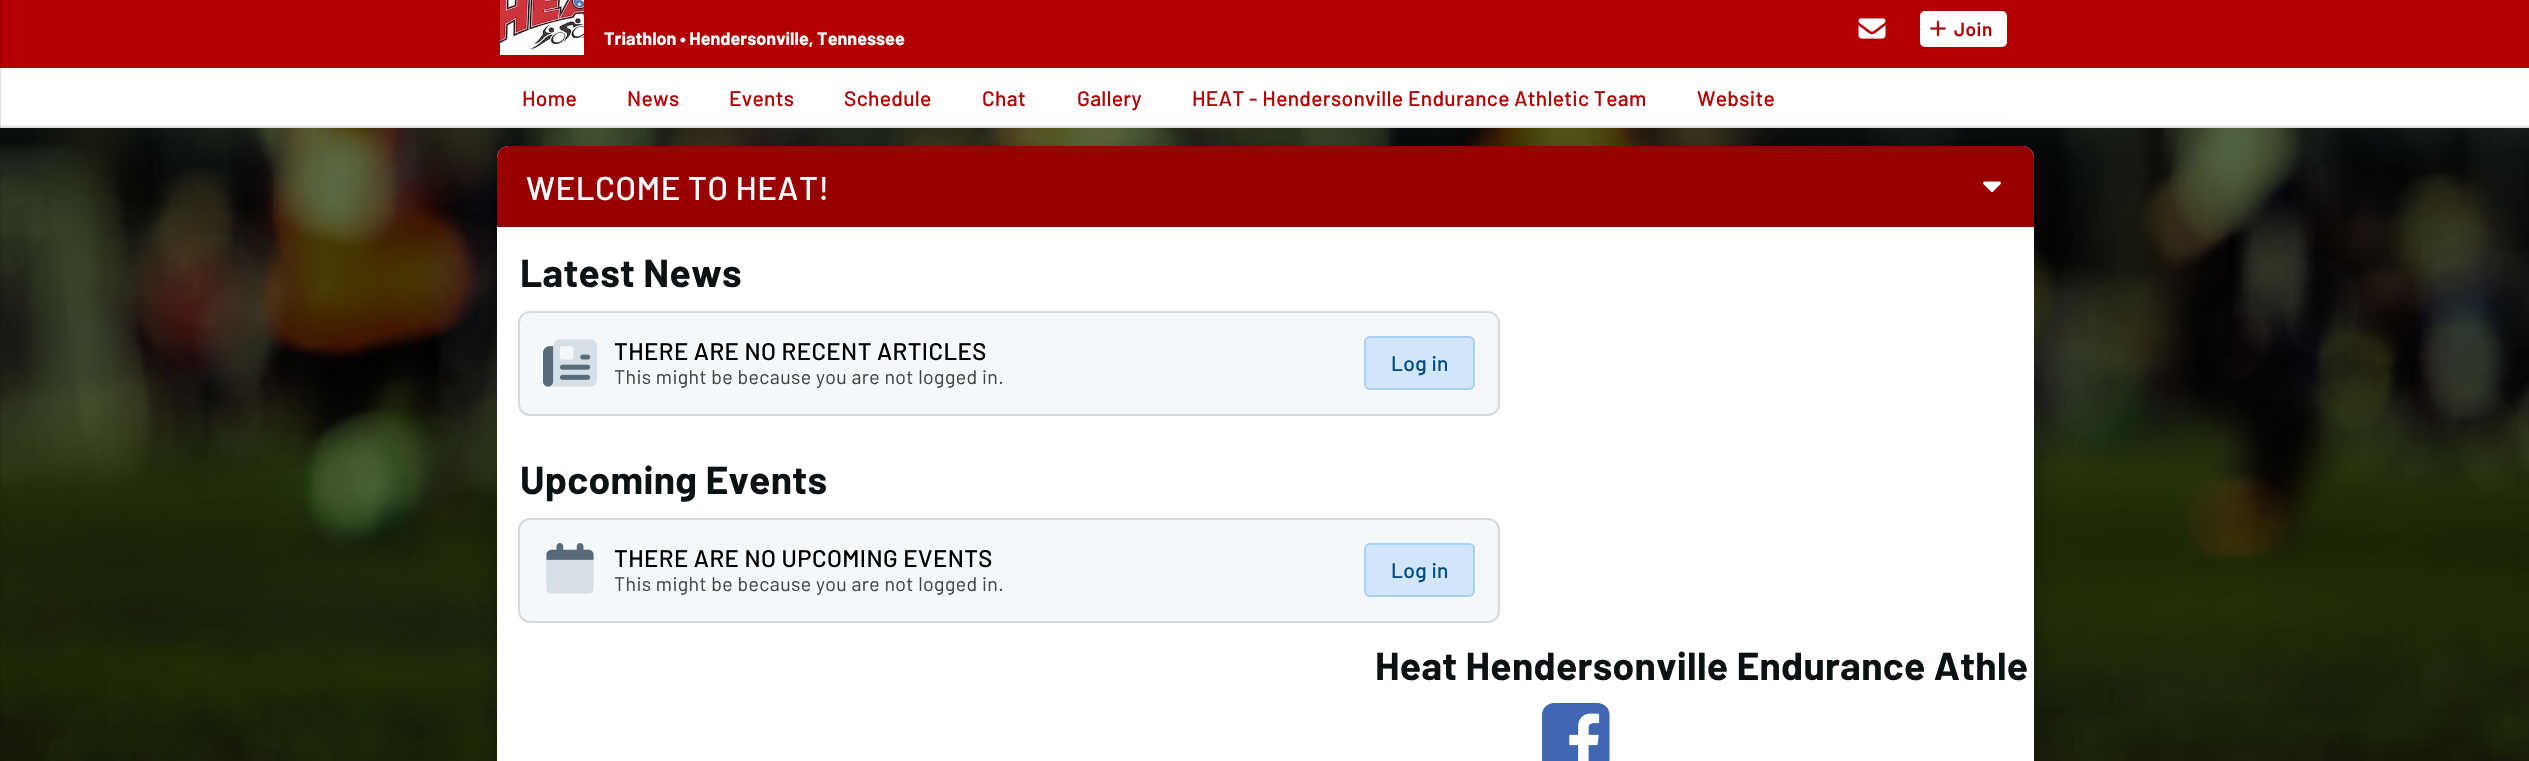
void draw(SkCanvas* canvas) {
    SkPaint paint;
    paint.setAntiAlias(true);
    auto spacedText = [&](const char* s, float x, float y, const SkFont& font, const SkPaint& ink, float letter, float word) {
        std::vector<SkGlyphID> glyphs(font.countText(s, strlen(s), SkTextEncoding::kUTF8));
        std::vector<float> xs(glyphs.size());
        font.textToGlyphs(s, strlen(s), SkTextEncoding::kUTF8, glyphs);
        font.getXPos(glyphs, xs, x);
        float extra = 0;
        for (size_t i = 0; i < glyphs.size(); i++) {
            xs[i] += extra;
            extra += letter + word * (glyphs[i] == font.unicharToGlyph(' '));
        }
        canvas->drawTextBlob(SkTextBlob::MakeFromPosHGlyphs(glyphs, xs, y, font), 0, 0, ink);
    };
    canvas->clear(0xFFFFFFFF);
    paint.setColor(0xFFB20000);
    canvas->drawRect(SkRect::MakeXYWH(0, 0, 2529, 68), paint);
    canvas->drawImageRect(SkImages::DeferredFromEncodedData(SkData::MakeFromFileName("img4.png")), SkRect::MakeXYWH(0, 128, 2529, 633), SkSamplingOptions());
    paint.setColor(0x1F000000);
    paint.setMaskFilter(SkMaskFilter::MakeBlur(kNormal_SkBlurStyle, 13.5f));
    canvas->drawRoundRect(SkRect::MakeXYWH(492, 147, 1547, 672), 17, 17, paint);
    paint.setMaskFilter(nullptr);
    paint.setColor(0x24000000);
    paint.setMaskFilter(SkMaskFilter::MakeBlur(kNormal_SkBlurStyle, 10.5f));
    canvas->drawRoundRect(SkRect::MakeXYWH(495, 159, 1541, 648), 14, 14, paint);
    paint.setMaskFilter(nullptr);
    paint.setColor(0xFFE0E0E0);
    canvas->drawRect(SkRect::MakeXYWH(0, 126, 2529, 2), paint);
    paint.setColor(0x1F000000);
    canvas->drawRect(SkRect::MakeXYWH(0, 0, 1, 761), paint);
    canvas->drawImageRect(SkImages::DeferredFromEncodedData(SkData::MakeFromFileName("img1.png")), SkRect::MakeXYWH(500, 0, 84, 55), SkSamplingOptions());
    canvas->drawImageRect(SkImages::DeferredFromEncodedData(SkData::MakeFromFileName("img2.png")), SkRect::MakeXYWH(1858, 18, 28, 21), SkSamplingOptions());
    paint.setColor(0xFFFFFFFF);
    canvas->drawRoundRect(SkRect::MakeXYWH(1920, 11, 87, 36), 5, 5, paint);
    canvas->drawImageRect(SkImages::DeferredFromEncodedData(SkData::MakeFromFileName("img3.png")), SkRect::MakeXYWH(1930, 20, 16, 17), SkSamplingOptions());
    SkFont font1(fontMgr->matchFamilyStyle("Barlow", SkFontStyle(600, SkFontStyle::kNormal_Width, SkFontStyle::kUpright_Slant)), 19);
    font1.setSubpixel(true);
    paint.setColor(0xFFB20000);
    spacedText("Join", 1954, 36, font1, paint, 0.5f, 0);
    SkFont font2(fontMgr->matchFamilyStyle("Barlow", SkFontStyle::Bold()), 18);
    font2.setSubpixel(true);
    paint.setColor(0xFFFFFFFF);
    canvas->drawString("Triathlon • Hendersonville, Tennessee", 604, 45, font2, paint);
    SkFont font3(fontMgr->matchFamilyStyle("Barlow", SkFontStyle(500, SkFontStyle::kNormal_Width, SkFontStyle::kUpright_Slant)), 21);
    font3.setSubpixel(true);
    paint.setColor(0xFFB20000);
    spacedText("Home", 522, 106, font3, paint, 0.3f, 0);
    spacedText("News", 627, 106, font3, paint, 0.3f, 0);
    spacedText("Events", 729, 106, font3, paint, 0.3f, 0);
    spacedText("Schedule", 844, 106, font3, paint, 0.3f, 0);
    spacedText("Chat", 982, 106, font3, paint, 0.3f, 0);
    spacedText("Gallery", 1077, 106, font3, paint, 0.3f, 0);
    spacedText("HEAT - Hendersonville Endurance Athletic Team", 1192, 106, font3, paint, 0.3f, 0);
    spacedText("Website", 1697, 106, font3, paint, 0.3f, 0);
    paint.setColor(0xFFFFFFFF);
    canvas->drawRoundRect(SkRect::MakeXYWH(497, 146, 1537, 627), 12, 12, paint);
    paint.setColor(0xFF990000);
    canvas->drawPath(SkPathBuilder().moveTo(509, 146).lineTo(2022, 146).cubicTo(2028.5f, 146, 2034, 151.5f, 2034, 158).lineTo(2034, 227).lineTo(497, 227).lineTo(497, 158).cubicTo(497, 151.5f, 502.5f, 146, 509, 146).close().detach(), paint);
    SkFont font4(fontMgr->matchFamilyStyle("Barlow", SkFontStyle(500, SkFontStyle::kNormal_Width, SkFontStyle::kUpright_Slant)), 33);
    font4.setSubpixel(true);
    paint.setColor(0xFFFFFFFF);
    spacedText("WELCOME TO HEAT!", 526, 200, font4, paint, 0.5f, 0);
    canvas->drawImageRect(SkImages::DeferredFromEncodedData(SkData::MakeFromFileName("img5.png")), SkRect::MakeXYWH(1983, 181, 18, 11), SkSamplingOptions());
    SkFont font5(fontMgr->matchFamilyStyle("Barlow", SkFontStyle::Bold()), 39);
    font5.setSubpixel(true);
    paint.setColor(0xFF0C1114);
    spacedText("Latest News", 520, 287, font5, paint, 0.3f, 0);
    paint.setColor(0xFFF5F8FA);
    canvas->drawRoundRect(SkRect::MakeXYWH(518, 311, 982, 105), 12, 12, paint);
    paint.setStyle(SkPaint::kStroke_Style);
    paint.setStrokeWidth(2);
    paint.setColor(0x1F000000);
    canvas->drawRoundRect(SkRect::MakeXYWH(519, 312, 980, 103), 11, 11, paint);
    canvas->drawImageRect(SkImages::DeferredFromEncodedData(SkData::MakeFromFileName("img6.png")), SkRect::MakeXYWH(543, 339, 54, 48), SkSamplingOptions());
    SkFont font6(fontMgr->matchFamilyStyle("Barlow", SkFontStyle(500, SkFontStyle::kNormal_Width, SkFontStyle::kUpright_Slant)), 24);
    font6.setSubpixel(true);
    paint.setStyle(SkPaint::kFill_Style);
    paint.setColor(0xFF000000);
    spacedText("THERE ARE NO RECENT ARTICLES", 614, 360, font6, paint, 0.4f, 0);
    SkFont font7(fontMgr->matchFamilyStyle("Barlow", SkFontStyle::Normal()), 19.5f);
    font7.setSubpixel(true);
    paint.setColor(0xFF424242);
    spacedText("This might be because you are not logged in.", 614, 384, font7, paint, 0.4f, 0);
    paint.setColor(0xFFD2E6FA);
    canvas->drawRoundRect(SkRect::MakeXYWH(1364, 336, 111, 54), 6, 6, paint);
    paint.setStyle(SkPaint::kStroke_Style);
    paint.setColor(0x330072EB);
    canvas->drawRoundRect(SkRect::MakeXYWH(1365, 337, 109, 52), 5, 5, paint);
    paint.setStyle(SkPaint::kFill_Style);
    paint.setColor(0xFF004B83);
    spacedText("Log in", 1391, 371, font3, paint, 0.3f, 0);
    paint.setColor(0xFF0C1114);
    spacedText("Upcoming Events", 520, 494, font5, paint, 0.3f, 0);
    paint.setColor(0xFFF5F8FA);
    canvas->drawRoundRect(SkRect::MakeXYWH(518, 518, 982, 105), 12, 12, paint);
    paint.setStyle(SkPaint::kStroke_Style);
    paint.setColor(0x1F000000);
    canvas->drawRoundRect(SkRect::MakeXYWH(519, 519, 980, 103), 11, 11, paint);
    canvas->drawImageRect(SkImages::DeferredFromEncodedData(SkData::MakeFromFileName("img7.png")), SkRect::MakeXYWH(546, 543, 48, 51), SkSamplingOptions());
    paint.setStyle(SkPaint::kFill_Style);
    paint.setColor(0xFF000000);
    spacedText("THERE ARE NO UPCOMING EVENTS", 614, 567, font6, paint, 0.4f, 0);
    paint.setColor(0xFF424242);
    spacedText("This might be because you are not logged in.", 614, 591, font7, paint, 0.4f, 0);
    paint.setColor(0xFFD2E6FA);
    canvas->drawRoundRect(SkRect::MakeXYWH(1364, 543, 111, 54), 6, 6, paint);
    paint.setStyle(SkPaint::kStroke_Style);
    paint.setColor(0x330072EB);
    canvas->drawRoundRect(SkRect::MakeXYWH(1365, 544, 109, 52), 5, 5, paint);
    paint.setStyle(SkPaint::kFill_Style);
    paint.setColor(0xFF004B83);
    spacedText("Log in", 1391, 578, font3, paint, 0.3f, 0);
    paint.setColor(0xFF0C1114);
    spacedText("Heat Hendersonville Endurance Athle", 1375, 680, font5, paint, 0.3f, 0);
    canvas->drawImageRect(SkImages::DeferredFromEncodedData(SkData::MakeFromFileName("img8.png")), SkRect::MakeXYWH(1542, 703, 68, 58), SkSamplingOptions());
}
